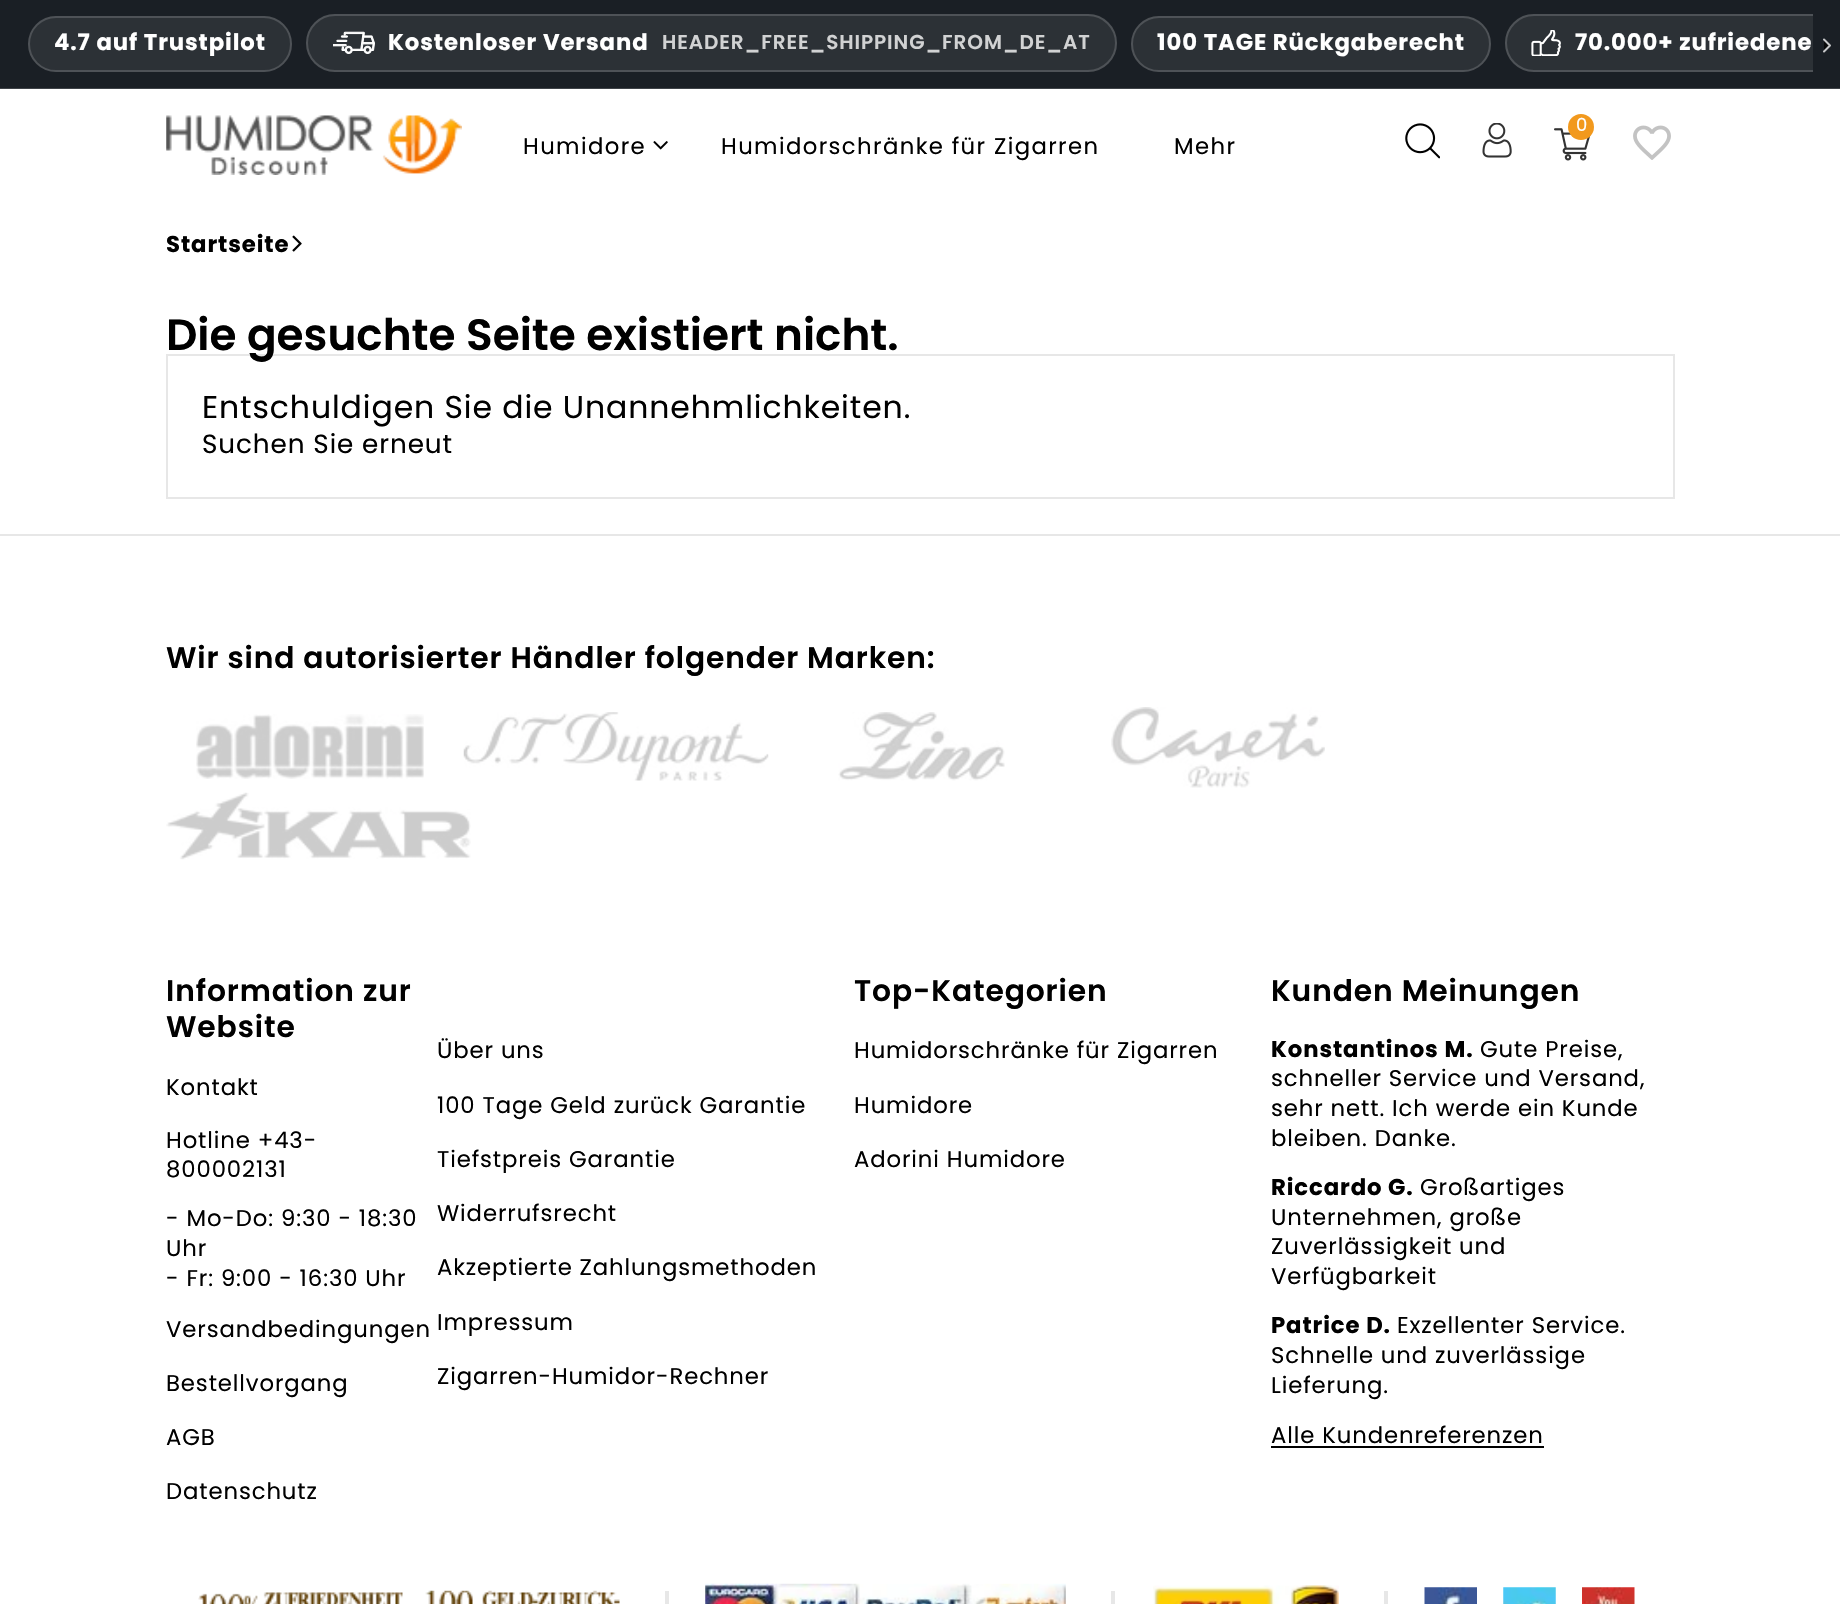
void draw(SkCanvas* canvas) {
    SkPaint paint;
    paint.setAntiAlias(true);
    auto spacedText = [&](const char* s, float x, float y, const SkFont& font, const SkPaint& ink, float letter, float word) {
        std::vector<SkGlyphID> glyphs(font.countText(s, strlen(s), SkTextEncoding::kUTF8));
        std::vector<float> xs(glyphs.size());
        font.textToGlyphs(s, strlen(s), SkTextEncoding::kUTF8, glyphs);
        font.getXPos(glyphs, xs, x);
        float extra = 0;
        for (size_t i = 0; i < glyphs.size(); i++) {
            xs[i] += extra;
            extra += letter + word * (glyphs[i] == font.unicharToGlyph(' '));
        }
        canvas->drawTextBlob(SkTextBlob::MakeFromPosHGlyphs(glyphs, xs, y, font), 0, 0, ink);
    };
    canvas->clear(0xFFFFFFFF);
    paint.setColor(0xFF1A1F25);
    canvas->drawRect(SkRect::MakeXYWH(0, 0, 1840, 88), paint);
    paint.setColor(0xFF3F4348);
    canvas->drawRect(SkRect::MakeXYWH(0, 88, 1840, 1), paint);
    paint.setColor(0xFF2C3136);
    canvas->drawRoundRect(SkRect::MakeXYWH(28, 16, 264, 56), 28, 28, paint);
    paint.setStyle(SkPaint::kStroke_Style);
    paint.setStrokeWidth(2);
    paint.setColor(0x29FFFFFF);
    canvas->drawRoundRect(SkRect::MakeXYWH(29, 17, 262, 54), 27, 27, paint);
    SkFont font1(fontMgr->matchFamilyStyle("Poppins", SkFontStyle::Bold()), 22.75f);
    font1.setSubpixel(true);
    paint.setStyle(SkPaint::kFill_Style);
    paint.setColor(0xFFFFFFFF);
    spacedText("4.7 auf Trustpilot", 54, 50, font1, paint, 0.9f, 0);
    paint.setColor(0xFF2C3136);
    canvas->drawRoundRect(SkRect::MakeXYWH(306, 14, 811, 58), 29, 29, paint);
    paint.setStyle(SkPaint::kStroke_Style);
    paint.setColor(0x29FFFFFF);
    canvas->drawRoundRect(SkRect::MakeXYWH(307, 15, 809, 56), 28, 28, paint);
    canvas->drawImageRect(SkImages::DeferredFromEncodedData(SkData::MakeFromFileName("img1.png")), SkRect::MakeXYWH(333, 31, 42, 23), SkSamplingOptions());
    paint.setStyle(SkPaint::kFill_Style);
    paint.setColor(0xFFFFFFFF);
    spacedText("Kostenloser Versand", 388, 50, font1, paint, 0.9f, 0);
    SkFont font2(fontMgr->matchFamilyStyle("Poppins", SkFontStyle(600, SkFontStyle::kNormal_Width, SkFontStyle::kUpright_Slant)), 20);
    font2.setSubpixel(true);
    paint.setColor(0xFFD1D2D3);
    spacedText("HEADER_FREE_SHIPPING_FROM_DE_AT", 662, 49, font2, paint, 0.9f, 0);
    paint.setColor(0xFF2C3136);
    canvas->drawRoundRect(SkRect::MakeXYWH(1131, 16, 360, 56), 28, 28, paint);
    paint.setStyle(SkPaint::kStroke_Style);
    paint.setColor(0x29FFFFFF);
    canvas->drawRoundRect(SkRect::MakeXYWH(1132, 17, 358, 54), 27, 27, paint);
    paint.setStyle(SkPaint::kFill_Style);
    paint.setColor(0xFFFFFFFF);
    spacedText("100 TAGE Rückgaberecht", 1157, 50, font1, paint, 0.9f, 0);
    paint.setColor(0xFF2C3136);
    canvas->drawPath(SkPathBuilder().moveTo(1534, 14).lineTo(1813, 14).lineTo(1813, 72).lineTo(1534, 72).cubicTo(1518, 72, 1505, 59, 1505, 43).cubicTo(1505, 27, 1518, 14, 1534, 14).close().detach(), paint);
    canvas->save();
    canvas->clipRect(SkRect::MakeXYWH(28, 11, 1785, 66));
    paint.setStyle(SkPaint::kStroke_Style);
    paint.setColor(0x29FFFFFF);
    canvas->drawRoundRect(SkRect::MakeXYWH(1506, 15, 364, 56), 28, 28, paint);
    canvas->restore();
    canvas->drawImageRect(SkImages::DeferredFromEncodedData(SkData::MakeFromFileName("img2.png")), SkRect::MakeXYWH(1531, 30, 30, 26), SkSamplingOptions());
    paint.setStyle(SkPaint::kFill_Style);
    paint.setColor(0xFFFFFFFF);
    spacedText("70.000+ zufriedene", 1575, 50, font1, paint, 0.9f, 0);
    paint.setColor(0xFF070809);
    canvas->drawPath(SkPathBuilder().moveTo(1824, 39.5f).lineTo(1830, 45.5f).lineTo(1824, 51.5f).detach(), paint);
    paint.setStyle(SkPaint::kStroke_Style);
    paint.setStrokeCap(SkPaint::kRound_Cap);
    paint.setStrokeJoin(SkPaint::kRound_Join);
    paint.setColor(0xFFC6C7C9);
    canvas->drawPath(SkPathBuilder().moveTo(1824, 39.5f).lineTo(1830, 45.5f).lineTo(1824, 51.5f).detach(), paint);
    canvas->drawImageRect(SkImages::DeferredFromEncodedData(SkData::MakeFromFileName("img3.png")), SkRect::MakeXYWH(166, 115, 296, 60), SkSamplingOptions());
    SkFont font3(fontMgr->matchFamilyStyle("Poppins", SkFontStyle::Normal()), 22.75f);
    font3.setSubpixel(true);
    paint.setStyle(SkPaint::kFill_Style);
    paint.setColor(0xFF000000);
    spacedText("Humidore", 523, 154, font3, paint, 1.4f, 0);
    canvas->drawImageRect(SkImages::DeferredFromEncodedData(SkData::MakeFromFileName("img4.png")), SkRect::MakeXYWH(653, 141, 15, 9), SkSamplingOptions());
    spacedText("Humidorschränke für Zigarren", 721, 154, font3, paint, 1.4f, 0);
    spacedText("Mehr", 1174, 154, font3, paint, 1.4f, 0);
    canvas->drawImageRect(SkImages::DeferredFromEncodedData(SkData::MakeFromFileName("img5.png")), SkRect::MakeXYWH(1405, 123, 35, 36), SkSamplingOptions());
    canvas->drawImageRect(SkImages::DeferredFromEncodedData(SkData::MakeFromFileName("img6.png")), SkRect::MakeXYWH(1482, 123, 30, 35), SkSamplingOptions());
    canvas->drawImageRect(SkImages::DeferredFromEncodedData(SkData::MakeFromFileName("img7.png")), SkRect::MakeXYWH(1554, 128, 37, 33), SkSamplingOptions());
    paint.setColor(0xFFF2991D);
    canvas->drawCircle(1581, 127, 13, paint);
    SkFont font4(fontMgr->matchFamilyStyle("Poppins", SkFontStyle::Normal()), 18);
    font4.setSubpixel(true);
    paint.setColor(0xFFFFFFFF);
    spacedText("0", 1576, 131, font4, paint, 0.9f, 0);
    canvas->drawImageRect(SkImages::DeferredFromEncodedData(SkData::MakeFromFileName("img8.png")), SkRect::MakeXYWH(1633, 125, 38, 35), SkSamplingOptions());
    paint.setColor(0xFF000000);
    spacedText("Startseite", 166, 252, font1, paint, 0.9f, 0);
    canvas->drawImageRect(SkImages::DeferredFromEncodedData(SkData::MakeFromFileName("img9.png")), SkRect::MakeXYWH(292, 235, 10, 17), SkSamplingOptions());
    paint.setStyle(SkPaint::kStroke_Style);
    paint.setStrokeCap(SkPaint::kButt_Cap);
    paint.setStrokeJoin(SkPaint::kMiter_Join);
    paint.setColor(0xFFE7E7E7);
    canvas->drawRect(SkRect::MakeXYWH(167, 355, 1507, 143), paint);
    SkFont font5(fontMgr->matchFamilyStyle("Poppins", SkFontStyle(600, SkFontStyle::kNormal_Width, SkFontStyle::kUpright_Slant)), 43.75f);
    font5.setSubpixel(true);
    paint.setStyle(SkPaint::kFill_Style);
    paint.setColor(0xFF000000);
    canvas->drawString("Die gesuchte Seite existiert nicht.", 166, 350, font5, paint);
    SkFont font6(fontMgr->matchFamilyStyle("Poppins", SkFontStyle::Normal()), 31.5f);
    font6.setSubpixel(true);
    spacedText("Entschuldigen Sie die Unannehmlichkeiten.", 202, 418, font6, paint, 0.9f, 0);
    SkFont font7(fontMgr->matchFamilyStyle("Poppins", SkFontStyle::Normal()), 26.25f);
    font7.setSubpixel(true);
    spacedText("Suchen Sie erneut", 202, 453, font7, paint, 0.9f, 0);
    paint.setColor(0xFFE7E7E7);
    canvas->drawRect(SkRect::MakeXYWH(0, 534, 1840, 2), paint);
    SkFont font8(fontMgr->matchFamilyStyle("Poppins", SkFontStyle(600, SkFontStyle::kNormal_Width, SkFontStyle::kUpright_Slant)), 29.75f);
    font8.setSubpixel(true);
    paint.setColor(0xFF000000);
    spacedText("Wir sind autorisierter Händler folgender Marken:", 166, 668, font8, paint, 0.9f, 0);
    canvas->drawImageRect(SkImages::DeferredFromEncodedData(SkData::MakeFromFileName("img10.png")), SkRect::MakeXYWH(196, 714, 228, 65), SkSamplingOptions());
    canvas->drawImageRect(SkImages::DeferredFromEncodedData(SkData::MakeFromFileName("img11.png")), SkRect::MakeXYWH(463, 712, 306, 69), SkSamplingOptions());
    canvas->drawImageRect(SkImages::DeferredFromEncodedData(SkData::MakeFromFileName("img12.png")), SkRect::MakeXYWH(838, 712, 167, 69), SkSamplingOptions());
    canvas->drawImageRect(SkImages::DeferredFromEncodedData(SkData::MakeFromFileName("img13.png")), SkRect::MakeXYWH(1111, 707, 214, 81), SkSamplingOptions());
    canvas->drawImageRect(SkImages::DeferredFromEncodedData(SkData::MakeFromFileName("img14.png")), SkRect::MakeXYWH(166, 792, 305, 68), SkSamplingOptions());
    spacedText("Information zur", 166, 1001, font8, paint, 0.9f, 0);
    spacedText("Website", 166, 1037, font8, paint, 0.9f, 0);
    spacedText("Kontakt", 166, 1095, font3, paint, 0.9f, 0);
    spacedText("Hotline +43-", 166, 1148, font3, paint, 0.9f, 0);
    spacedText("800002131", 166, 1177, font3, paint, 0.9f, 0);
    spacedText("- Mo-Do: 9:30 - 18:30", 166, 1226, font3, paint, 0.9f, 0);
    spacedText("Uhr", 166, 1256, font3, paint, 0.9f, 0);
    spacedText("- Fr: 9:00 - 16:30 Uhr", 166, 1286, font3, paint, 0.9f, 0);
    spacedText("Versandbedingungen", 166, 1337, font3, paint, 0.9f, 0);
    spacedText("Bestellvorgang", 166, 1391, font3, paint, 0.9f, 0);
    spacedText("AGB", 166, 1445, font3, paint, 0.9f, 0);
    spacedText("Datenschutz", 166, 1499, font3, paint, 0.9f, 0);
    spacedText("Über uns", 437, 1058, font3, paint, 0.9f, 0);
    spacedText("100 Tage Geld zurück Garantie", 437, 1113, font3, paint, 0.9f, 0);
    spacedText("Tiefstpreis Garantie", 437, 1167, font3, paint, 0.9f, 0);
    spacedText("Widerrufsrecht", 437, 1221, font3, paint, 0.9f, 0);
    spacedText("Akzeptierte Zahlungsmethoden", 437, 1275, font3, paint, 0.9f, 0);
    spacedText("Impressum", 437, 1330, font3, paint, 0.9f, 0);
    spacedText("Zigarren-Humidor-Rechner", 437, 1384, font3, paint, 0.9f, 0);
    spacedText("Top-Kategorien", 854, 1001, font8, paint, 0.9f, 0);
    spacedText("Humidorschränke für Zigarren", 854, 1058, font3, paint, 0.9f, 0);
    spacedText("Humidore", 854, 1113, font3, paint, 0.9f, 0);
    spacedText("Adorini Humidore", 854, 1167, font3, paint, 0.9f, 0);
    spacedText("Kunden Meinungen", 1271, 1001, font8, paint, 0.9f, 0);
    spacedText("Konstantinos M.", 1271, 1057, font1, paint, 0.9f, 0);
    spacedText("Gute Preise,", 1480, 1057, font3, paint, 0.9f, 0);
    spacedText("schneller Service und Versand,", 1271, 1086, font3, paint, 0.9f, 0);
    spacedText("sehr nett. Ich werde ein Kunde", 1271, 1116, font3, paint, 0.9f, 0);
    spacedText("bleiben. Danke.", 1271, 1146, font3, paint, 0.9f, 0);
    spacedText("Riccardo G.", 1271, 1195, font1, paint, 0.9f, 0);
    spacedText("Großartiges", 1420, 1195, font3, paint, 0.9f, 0);
    spacedText("Unternehmen, große", 1271, 1225, font3, paint, 0.9f, 0);
    spacedText("Zuverlässigkeit und", 1271, 1254, font3, paint, 0.9f, 0);
    spacedText("Verfügbarkeit", 1271, 1284, font3, paint, 0.9f, 0);
    spacedText("Patrice D.", 1271, 1333, font1, paint, 0.9f, 0);
    spacedText("Exzellenter Service.", 1397, 1333, font3, paint, 0.9f, 0);
    spacedText("Schnelle und zuverlässige", 1271, 1363, font3, paint, 0.9f, 0);
    spacedText("Lieferung.", 1271, 1393, font3, paint, 0.9f, 0);
    spacedText("Alle Kundenreferenzen", 1271, 1443, font3, paint, 0.9f, 0);
    canvas->drawRect(SkRect::MakeXYWH(1271, 1446, 273, 2), paint);
    canvas->drawImageRect(SkImages::DeferredFromEncodedData(SkData::MakeFromFileName("img15.png")), SkRect::MakeXYWH(198, 1590, 422, 14), SkSamplingOptions());
    paint.setColor(0xFFE7E7E7);
    canvas->drawRect(SkRect::MakeXYWH(665, 1591, 4, 13), paint);
    canvas->drawImageRect(SkImages::DeferredFromEncodedData(SkData::MakeFromFileName("img16.png")), SkRect::MakeXYWH(705, 1583, 361, 21), SkSamplingOptions());
    canvas->drawRect(SkRect::MakeXYWH(1111, 1591, 4, 13), paint);
    canvas->drawImageRect(SkImages::DeferredFromEncodedData(SkData::MakeFromFileName("img17.png")), SkRect::MakeXYWH(1153, 1585, 186, 19), SkSamplingOptions());
    canvas->drawRect(SkRect::MakeXYWH(1384, 1591, 4, 13), paint);
    canvas->drawImageRect(SkImages::DeferredFromEncodedData(SkData::MakeFromFileName("img18.png")), SkRect::MakeXYWH(1424, 1587, 53, 17), SkSamplingOptions());
    canvas->drawImageRect(SkImages::DeferredFromEncodedData(SkData::MakeFromFileName("img19.png")), SkRect::MakeXYWH(1503, 1587, 53, 17), SkSamplingOptions());
    canvas->drawImageRect(SkImages::DeferredFromEncodedData(SkData::MakeFromFileName("img20.png")), SkRect::MakeXYWH(1582, 1587, 53, 17), SkSamplingOptions());
}
